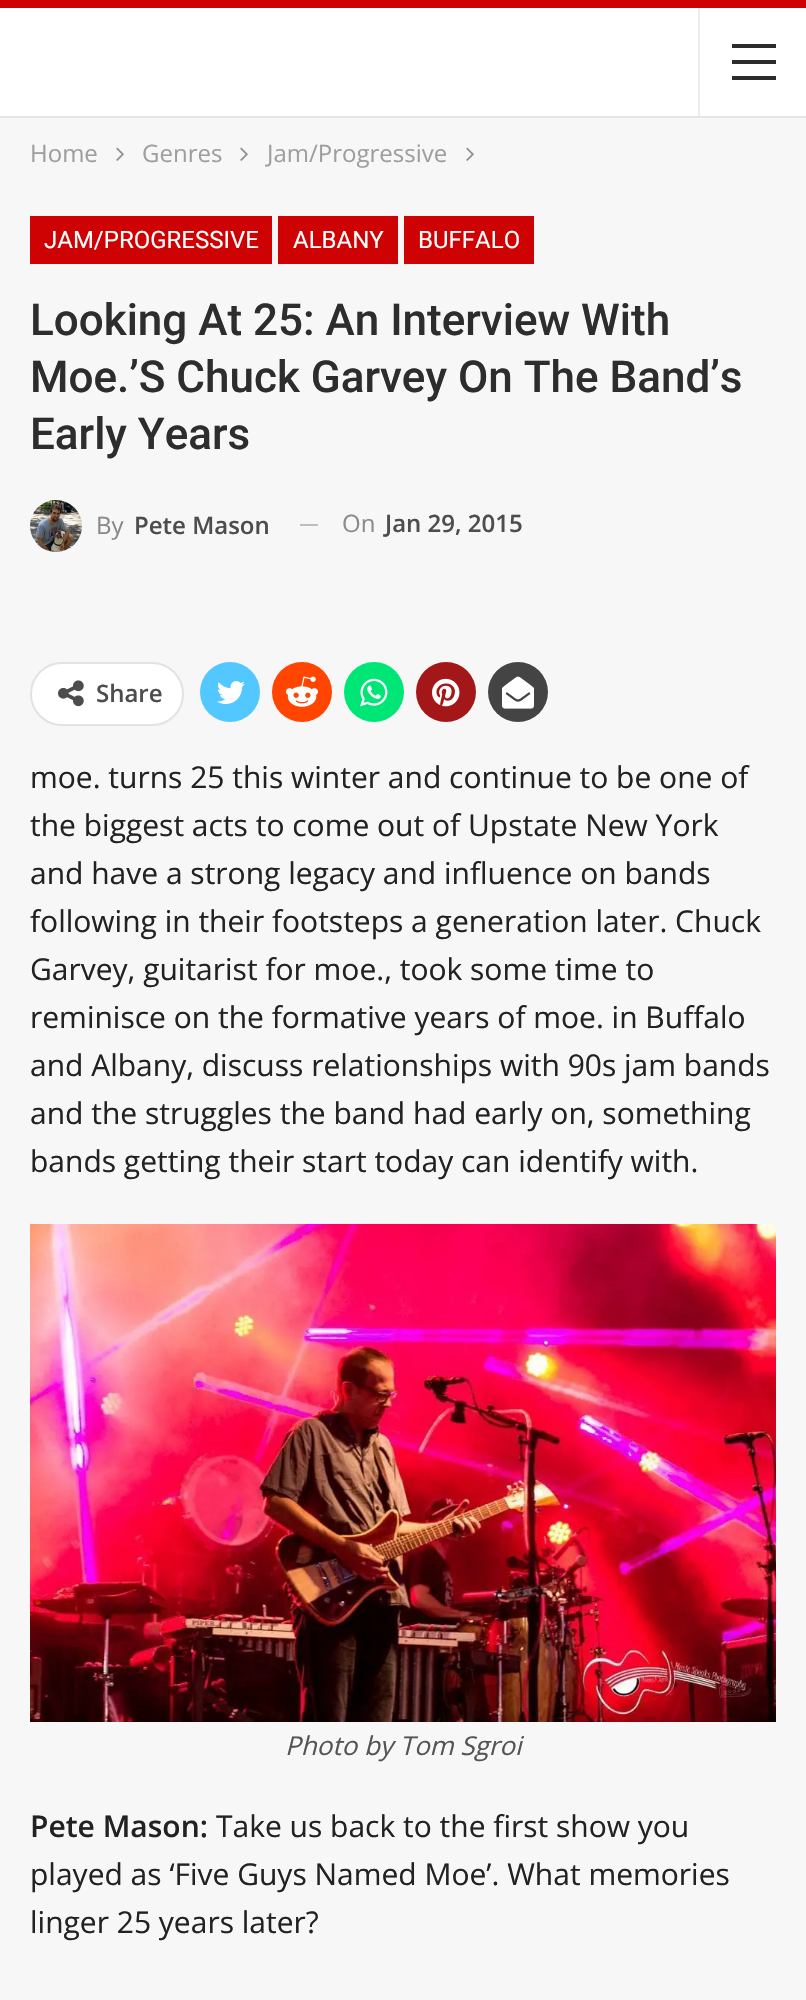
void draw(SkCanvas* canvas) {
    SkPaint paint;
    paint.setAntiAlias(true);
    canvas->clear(0xFFCE0202);
    paint.setColor(0xFFF7F7F7);
    canvas->drawRect(SkRect::MakeXYWH(0, 118, 806, 1882), paint);
    paint.setColor(0xFFFFFFFF);
    canvas->drawRect(SkRect::MakeXYWH(0, 8, 806, 108), paint);
    paint.setColor(0xFFE5E5E5);
    canvas->drawRect(SkRect::MakeXYWH(0, 116, 806, 2), paint);
    paint.setColor(0xFFEDEDED);
    canvas->drawRect(SkRect::MakeXYWH(698, 8, 2, 108), paint);
    paint.setColor(0xFF2C2C2C);
    canvas->drawRect(SkRect::MakeXYWH(732, 60, 44, 4), paint);
    canvas->drawRect(SkRect::MakeXYWH(732, 44, 44, 4), paint);
    canvas->drawRect(SkRect::MakeXYWH(732, 76, 44, 4), paint);
    SkFont font1(fontMgr->matchFamilyStyle("Open Sans", SkFontStyle::Normal()), 24);
    font1.setSubpixel(true);
    paint.setColor(0xFF9E9E9E);
    canvas->drawString("Home", 30, 162, font1, paint);
    canvas->drawImageRect(SkImages::DeferredFromEncodedData(SkData::MakeFromFileName("img1.png")), SkRect::MakeXYWH(116, 147, 8, 14), SkSamplingOptions());
    canvas->drawString("Genres", 142, 162, font1, paint);
    canvas->drawImageRect(SkImages::DeferredFromEncodedData(SkData::MakeFromFileName("img1.png")), SkRect::MakeXYWH(240, 147, 8, 14), SkSamplingOptions());
    canvas->drawString("Jam/Progressive", 267, 162, font1, paint);
    canvas->drawImageRect(SkImages::DeferredFromEncodedData(SkData::MakeFromFileName("img1.png")), SkRect::MakeXYWH(466, 147, 8, 14), SkSamplingOptions());
    paint.setColor(0xFFCE0202);
    canvas->drawRect(SkRect::MakeXYWH(30, 216, 242, 48), paint);
    SkFont font2(fontMgr->matchFamilyStyle("Roboto", SkFontStyle::Normal()), 24);
    font2.setSubpixel(true);
    paint.setColor(0xFFFFFFFF);
    canvas->drawString("JAM/PROGRESSIVE", 44, 248, font2, paint);
    paint.setColor(0xFFCE0202);
    canvas->drawRect(SkRect::MakeXYWH(278, 216, 120, 48), paint);
    paint.setColor(0xFFFFFFFF);
    canvas->drawString("ALBANY", 293, 248, font2, paint);
    paint.setColor(0xFFCE0202);
    canvas->drawRect(SkRect::MakeXYWH(404, 216, 130, 48), paint);
    paint.setColor(0xFFFFFFFF);
    canvas->drawString("BUFFALO", 418, 248, font2, paint);
    SkFont font3(fontMgr->matchFamilyStyle("Roboto", SkFontStyle(500, SkFontStyle::kNormal_Width, SkFontStyle::kUpright_Slant)), 44);
    font3.setSubpixel(true);
    paint.setColor(0xFF2D2D2D);
    canvas->drawString("Looking At 25: An Interview With", 30, 335, font3, paint);
    canvas->drawString("Moe.’S Chuck Garvey On The Band’s", 30, 392, font3, paint);
    canvas->drawString("Early Years", 30, 449, font3, paint);
    canvas->drawImageRect(SkImages::DeferredFromEncodedData(SkData::MakeFromFileName("img2.png")), SkRect::MakeXYWH(30, 500, 52, 52), SkSamplingOptions());
    paint.setColor(0xFF8A8A8A);
    canvas->drawString("By", 96, 534, font1, paint);
    SkFont font4(fontMgr->matchFamilyStyle("Open Sans", SkFontStyle(600, SkFontStyle::kNormal_Width, SkFontStyle::kUpright_Slant)), 24);
    font4.setSubpixel(true);
    paint.setColor(0xFF4D4D4D);
    canvas->drawString("Pete Mason", 134, 534, font4, paint);
    paint.setColor(0xFFBEBEBE);
    canvas->drawRect(SkRect::MakeXYWH(300, 524, 18, 2), paint);
    paint.setColor(0xFF8A8A8A);
    canvas->drawString("On", 342, 532, font1, paint);
    paint.setColor(0xFF4D4D4D);
    canvas->drawString("Jan 29, 2015", 385, 532, font4, paint);
    paint.setColor(0xFFFFFFFF);
    canvas->drawRoundRect(SkRect::MakeXYWH(31, 663, 152, 62), 31, 31, paint);
    paint.setStyle(SkPaint::kStroke_Style);
    paint.setStrokeWidth(2);
    paint.setColor(0xFFE2E2E2);
    canvas->drawRoundRect(SkRect::MakeXYWH(31, 663, 152, 62), 31, 31, paint);
    canvas->drawImageRect(SkImages::DeferredFromEncodedData(SkData::MakeFromFileName("img3.png")), SkRect::MakeXYWH(58, 680, 26, 27), SkSamplingOptions());
    paint.setStyle(SkPaint::kFill_Style);
    paint.setColor(0xFF4D4D4D);
    canvas->drawString("Share", 96, 702, font4, paint);
    paint.setColor(0xFF53C7FF);
    canvas->drawCircle(230, 692, 30, paint);
    canvas->drawImageRect(SkImages::DeferredFromEncodedData(SkData::MakeFromFileName("img4.png")), SkRect::MakeXYWH(217, 681, 28, 23), SkSamplingOptions());
    paint.setColor(0xFFFF4500);
    canvas->drawCircle(302, 692, 30, paint);
    canvas->drawImageRect(SkImages::DeferredFromEncodedData(SkData::MakeFromFileName("img5.png")), SkRect::MakeXYWH(286, 676, 32, 31), SkSamplingOptions());
    paint.setColor(0xFF00E676);
    canvas->drawCircle(374, 692, 30, paint);
    canvas->drawImageRect(SkImages::DeferredFromEncodedData(SkData::MakeFromFileName("img6.png")), SkRect::MakeXYWH(360, 678, 28, 29), SkSamplingOptions());
    paint.setColor(0xFFA41719);
    canvas->drawCircle(446, 692, 30, paint);
    canvas->drawImageRect(SkImages::DeferredFromEncodedData(SkData::MakeFromFileName("img7.png")), SkRect::MakeXYWH(432, 678, 28, 29), SkSamplingOptions());
    paint.setColor(0xFF444444);
    canvas->drawCircle(518, 692, 30, paint);
    canvas->drawImageRect(SkImages::DeferredFromEncodedData(SkData::MakeFromFileName("img8.png")), SkRect::MakeXYWH(502, 676, 32, 33), SkSamplingOptions());
    SkFont font5(fontMgr->matchFamilyStyle("Open Sans", SkFontStyle::Normal()), 30);
    font5.setSubpixel(true);
    paint.setColor(0xFF222222);
    canvas->drawString("moe. turns 25 this winter and continue to be one of", 30, 788, font5, paint);
    canvas->drawString("the biggest acts to come out of Upstate New York", 30, 836, font5, paint);
    canvas->drawString("and have a strong legacy and influence on bands", 30, 884, font5, paint);
    canvas->drawString("following in their footsteps a generation later. Chuck", 30, 932, font5, paint);
    canvas->drawString("Garvey, guitarist for moe., took some time to", 30, 980, font5, paint);
    canvas->drawString("reminisce on the formative years of moe. in Buffalo", 30, 1028, font5, paint);
    canvas->drawString("and Albany, discuss relationships with 90s jam bands", 30, 1076, font5, paint);
    canvas->drawString("and the struggles the band had early on, something", 30, 1124, font5, paint);
    canvas->drawString("bands getting their start today can identify with.", 30, 1172, font5, paint);
    canvas->drawImageRect(SkImages::DeferredFromEncodedData(SkData::MakeFromFileName("img9.png")), SkRect::MakeXYWH(30, 1224, 746, 498), SkSamplingOptions());
    SkFont font6(fontMgr->matchFamilyStyle("Open Sans", SkFontStyle::Italic()), 26);
    font6.setSubpixel(true);
    paint.setColor(0xFF545454);
    canvas->drawString("Photo by Tom Sgroi", 285, 1755, font6, paint);
    SkFont font7(fontMgr->matchFamilyStyle("Open Sans", SkFontStyle(600, SkFontStyle::kNormal_Width, SkFontStyle::kUpright_Slant)), 30);
    font7.setSubpixel(true);
    paint.setColor(0xFF222222);
    canvas->drawString("Pete Mason:", 30, 1837, font7, paint);
    canvas->drawString("Take us back to the first show you", 216, 1837, font5, paint);
    canvas->drawString("played as ‘Five Guys Named Moe’. What memories", 30, 1885, font5, paint);
    canvas->drawString("linger 25 years later?", 30, 1933, font5, paint);
}
